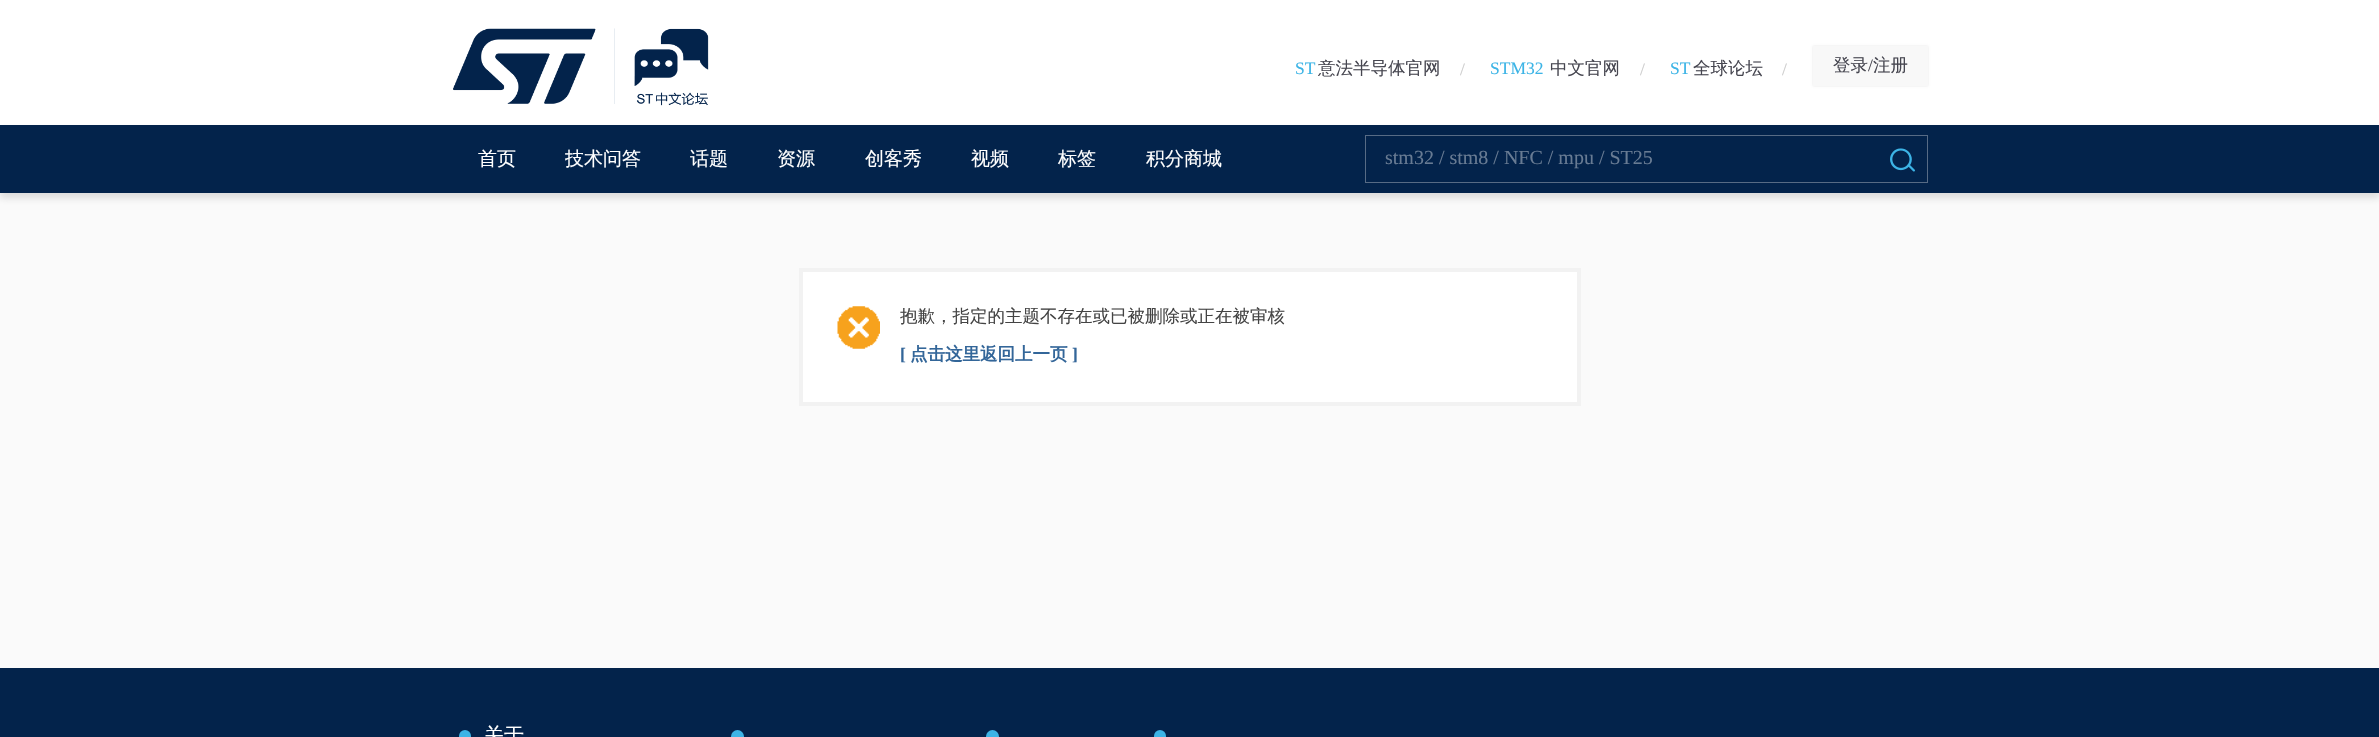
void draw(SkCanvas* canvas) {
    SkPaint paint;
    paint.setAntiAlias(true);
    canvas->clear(0xFFFAFAFA);
    paint.setColor(0xFFFFFFFF);
    canvas->drawRect(SkRect::MakeXYWH(0, 0, 2379, 125), paint);
    canvas->drawImageRect(SkImages::DeferredFromEncodedData(SkData::MakeFromFileName("img1.png")), SkRect::MakeXYWH(453, 28, 256, 78), SkSamplingOptions());
    SkFont font1(fontMgr->matchFamilyStyle("Liberation Serif", SkFontStyle::Normal()), 17.5f);
    font1.setSubpixel(true);
    paint.setColor(0xFF3CB4E6);
    canvas->drawString("ST", 1295, 74, font1, paint);
    SkFont font2(fontMgr->matchFamilyStyle("WenQuanYi Zen Hei", SkFontStyle(500, SkFontStyle::kNormal_Width, SkFontStyle::kUpright_Slant)), 17.5f);
    font2.setSubpixel(true);
    paint.setColor(0xFF464650);
    canvas->drawString("意法半导体官网", 1318, 74, font2, paint);
    paint.setColor(0xFFCCCCCC);
    canvas->drawString("/", 1460, 75, font1, paint);
    paint.setColor(0xFF3CB4E6);
    canvas->drawString("STM32", 1490, 74, font1, paint);
    paint.setColor(0xFF464650);
    canvas->drawString("中文官网", 1550, 74, font2, paint);
    paint.setColor(0xFFCCCCCC);
    canvas->drawString("/", 1640, 75, font1, paint);
    paint.setColor(0xFF3CB4E6);
    canvas->drawString("ST", 1670, 74, font1, paint);
    paint.setColor(0xFF464650);
    canvas->drawString("全球论坛", 1693, 74, font2, paint);
    paint.setColor(0xFFCCCCCC);
    canvas->drawString("/", 1782, 75, font1, paint);
    paint.setColor(0x1A000000);
    paint.setMaskFilter(SkMaskFilter::MakeBlur(kNormal_SkBlurStyle, 1));
    canvas->drawRect(SkRect::MakeXYWH(1813, 46, 115, 40), paint);
    paint.setMaskFilter(nullptr);
    paint.setColor(0xFFF8F8F8);
    canvas->drawRect(SkRect::MakeXYWH(1813, 46, 115, 40), paint);
    paint.setColor(0xFF464650);
    canvas->drawString("登录", 1833, 71, font2, paint);
    canvas->drawString("/", 1868, 71, font1, paint);
    canvas->drawString("注册", 1873, 71, font2, paint);
    paint.setColor(0x2627292B);
    paint.setMaskFilter(SkMaskFilter::MakeBlur(kNormal_SkBlurStyle, 3.5f));
    canvas->drawRect(SkRect::MakeXYWH(0, 130, 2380, 68), paint);
    paint.setMaskFilter(nullptr);
    paint.setColor(0xFF03234B);
    canvas->drawRect(SkRect::MakeXYWH(0, 125, 2379, 68), paint);
    SkFont font3(fontMgr->matchFamilyStyle("WenQuanYi Zen Hei", SkFontStyle(500, SkFontStyle::kNormal_Width, SkFontStyle::kUpright_Slant)), 19);
    font3.setSubpixel(true);
    paint.setColor(0xFFFFFFFF);
    canvas->drawString("首页", 478, 165, font3, paint);
    canvas->drawString("技术问答", 565, 165, font3, paint);
    canvas->drawString("话题", 690, 165, font3, paint);
    canvas->drawString("资源", 777, 165, font3, paint);
    canvas->drawString("创客秀", 865, 165, font3, paint);
    canvas->drawString("视频", 971, 165, font3, paint);
    canvas->drawString("标签", 1058, 165, font3, paint);
    canvas->drawString("积分商城", 1146, 165, font3, paint);
    paint.setStyle(SkPaint::kStroke_Style);
    paint.setStrokeWidth(1);
    paint.setColor(0xFF576B85);
    canvas->drawRect(SkRect::MakeXYWH(1365.5f, 135.5f, 562, 47), paint);
    SkFont font4(fontMgr->matchFamilyStyle("Liberation Serif", SkFontStyle::Normal()), 20);
    font4.setSubpixel(true);
    paint.setStyle(SkPaint::kFill_Style);
    paint.setColor(0xFF687B93);
    canvas->drawString("stm32 / stm8 / NFC / mpu / ST25", 1385, 164, font4, paint);
    canvas->drawImageRect(SkImages::DeferredFromEncodedData(SkData::MakeFromFileName("img2.png")), SkRect::MakeXYWH(1890, 148, 25, 24), SkSamplingOptions());
    paint.setColor(0xFFFFFFFF);
    canvas->drawRect(SkRect::MakeXYWH(801, 270, 778, 134), paint);
    paint.setStyle(SkPaint::kStroke_Style);
    paint.setStrokeWidth(4);
    paint.setColor(0xFFF2F2F2);
    canvas->drawRect(SkRect::MakeXYWH(801, 270, 778, 134), paint);
    canvas->drawImageRect(SkImages::DeferredFromEncodedData(SkData::MakeFromFileName("img3.png")), SkRect::MakeXYWH(837, 306, 43, 43), SkSamplingOptions());
    paint.setStyle(SkPaint::kFill_Style);
    paint.setColor(0xFF444444);
    canvas->drawString("抱歉，指定的主题不存在或已被删除或正在被审核", 900, 322, font2, paint);
    SkFont font5(fontMgr->matchFamilyStyle("Liberation Serif", SkFontStyle::Bold()), 17.5f);
    font5.setSubpixel(true);
    paint.setColor(0xFF336699);
    canvas->drawString("[", 900, 360, font5, paint);
    SkFont font6(fontMgr->matchFamilyStyle("WenQuanYi Zen Hei", SkFontStyle::Bold()), 17.5f);
    font6.setSubpixel(true);
    canvas->drawString("点击这里返回上一页", 910, 360, font6, paint);
    canvas->drawString("]", 1072, 360, font5, paint);
    paint.setColor(0xFF03234B);
    canvas->drawRect(SkRect::MakeXYWH(0, 668, 2379, 69), paint);
    paint.setColor(0xFF3CB4E6);
    canvas->drawRoundRect(SkRect::MakeXYWH(459, 730, 12, 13), 6, 6, paint);
    SkFont font7(fontMgr->matchFamilyStyle("WenQuanYi Zen Hei", SkFontStyle(500, SkFontStyle::kNormal_Width, SkFontStyle::kUpright_Slant)), 20);
    font7.setSubpixel(true);
    paint.setColor(0xFFFFFFFF);
    canvas->drawString("关于", 484, 742, font7, paint);
    paint.setColor(0xFF3CB4E6);
    canvas->drawCircle(737.5f, 736.5f, 6.5f, paint);
    canvas->drawCircle(992.5f, 736.5f, 6.5f, paint);
    canvas->drawRoundRect(SkRect::MakeXYWH(1154, 730, 12, 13), 6, 6, paint);
}
